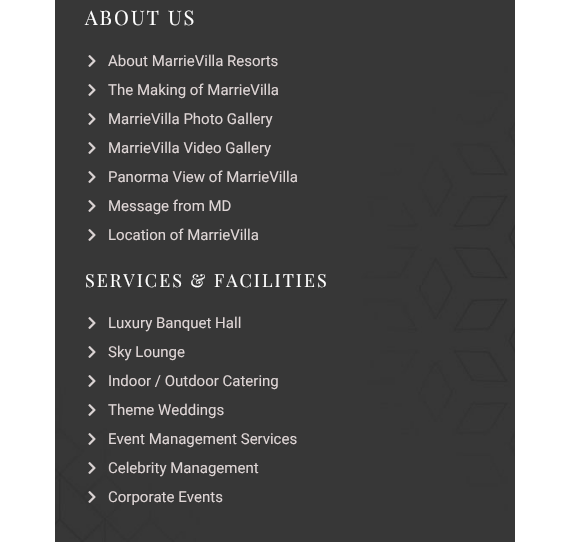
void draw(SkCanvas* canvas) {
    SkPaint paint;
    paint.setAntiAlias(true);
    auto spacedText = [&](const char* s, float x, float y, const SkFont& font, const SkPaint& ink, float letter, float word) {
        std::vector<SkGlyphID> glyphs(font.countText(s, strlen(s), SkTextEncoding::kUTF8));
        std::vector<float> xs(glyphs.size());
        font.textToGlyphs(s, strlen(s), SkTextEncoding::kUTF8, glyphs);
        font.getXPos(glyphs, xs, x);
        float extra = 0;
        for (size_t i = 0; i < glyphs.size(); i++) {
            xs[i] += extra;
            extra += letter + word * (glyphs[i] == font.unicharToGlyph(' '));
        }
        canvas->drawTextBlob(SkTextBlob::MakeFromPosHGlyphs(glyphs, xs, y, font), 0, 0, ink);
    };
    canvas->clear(0xFFFFFFFF);
    canvas->drawImageRect(SkImages::DeferredFromEncodedData(SkData::MakeFromFileName("img1.png")), SkRect::MakeXYWH(55, 0, 460, 542), SkSamplingOptions());
    SkFont font1(fontMgr->matchFamilyStyle("Playfair Display", SkFontStyle::Normal()), 20);
    font1.setSubpixel(true);
    paint.setColor(0xFFFFFFFF);
    spacedText("ABOUT US", 85, 25, font1, paint, 2, 0);
    canvas->drawImageRect(SkImages::DeferredFromEncodedData(SkData::MakeFromFileName("img2.png")), SkRect::MakeXYWH(88, 55, 8, 12), SkSamplingOptions());
    SkFont font2(fontMgr->matchFamilyStyle("Roboto", SkFontStyle::Normal()), 15);
    font2.setSubpixel(true);
    paint.setColor(0xFFDFD6D6);
    canvas->drawString("About MarrieVilla Resorts", 108, 66, font2, paint);
    canvas->drawImageRect(SkImages::DeferredFromEncodedData(SkData::MakeFromFileName("img2.png")), SkRect::MakeXYWH(88, 84, 8, 12), SkSamplingOptions());
    canvas->drawString("The Making of MarrieVilla", 108, 95, font2, paint);
    canvas->drawImageRect(SkImages::DeferredFromEncodedData(SkData::MakeFromFileName("img2.png")), SkRect::MakeXYWH(88, 113, 8, 12), SkSamplingOptions());
    canvas->drawString("MarrieVilla Photo Gallery", 108, 124, font2, paint);
    canvas->drawImageRect(SkImages::DeferredFromEncodedData(SkData::MakeFromFileName("img2.png")), SkRect::MakeXYWH(88, 142, 8, 12), SkSamplingOptions());
    canvas->drawString("MarrieVilla Video Gallery", 108, 153, font2, paint);
    canvas->drawImageRect(SkImages::DeferredFromEncodedData(SkData::MakeFromFileName("img2.png")), SkRect::MakeXYWH(88, 171, 8, 12), SkSamplingOptions());
    canvas->drawString("Panorma View of MarrieVilla", 108, 182, font2, paint);
    canvas->drawImageRect(SkImages::DeferredFromEncodedData(SkData::MakeFromFileName("img2.png")), SkRect::MakeXYWH(88, 200, 8, 12), SkSamplingOptions());
    canvas->drawString("Message from MD", 108, 211, font2, paint);
    canvas->drawImageRect(SkImages::DeferredFromEncodedData(SkData::MakeFromFileName("img2.png")), SkRect::MakeXYWH(88, 229, 8, 12), SkSamplingOptions());
    canvas->drawString("Location of MarrieVilla", 108, 240, font2, paint);
    SkFont font3(fontMgr->matchFamilyStyle("Playfair Display", SkFontStyle::Normal()), 18);
    font3.setSubpixel(true);
    paint.setColor(0xFFFFFFFF);
    spacedText("SERVICES & FACILITIES", 85, 287, font3, paint, 2, 0);
    canvas->drawImageRect(SkImages::DeferredFromEncodedData(SkData::MakeFromFileName("img2.png")), SkRect::MakeXYWH(88, 317, 8, 12), SkSamplingOptions());
    paint.setColor(0xFFDFD6D6);
    canvas->drawString("Luxury Banquet Hall", 108, 328, font2, paint);
    canvas->drawImageRect(SkImages::DeferredFromEncodedData(SkData::MakeFromFileName("img2.png")), SkRect::MakeXYWH(88, 346, 8, 12), SkSamplingOptions());
    canvas->drawString("Sky Lounge", 108, 357, font2, paint);
    canvas->drawImageRect(SkImages::DeferredFromEncodedData(SkData::MakeFromFileName("img2.png")), SkRect::MakeXYWH(88, 375, 8, 12), SkSamplingOptions());
    canvas->drawString("Indoor / Outdoor Catering", 108, 386, font2, paint);
    canvas->drawImageRect(SkImages::DeferredFromEncodedData(SkData::MakeFromFileName("img2.png")), SkRect::MakeXYWH(88, 404, 8, 12), SkSamplingOptions());
    canvas->drawString("Theme Weddings", 108, 415, font2, paint);
    canvas->drawImageRect(SkImages::DeferredFromEncodedData(SkData::MakeFromFileName("img3.png")), SkRect::MakeXYWH(88, 433, 8, 12), SkSamplingOptions());
    canvas->drawString("Event Management Services", 108, 444, font2, paint);
    canvas->drawImageRect(SkImages::DeferredFromEncodedData(SkData::MakeFromFileName("img2.png")), SkRect::MakeXYWH(88, 462, 8, 12), SkSamplingOptions());
    canvas->drawString("Celebrity Management", 108, 473, font2, paint);
    canvas->drawImageRect(SkImages::DeferredFromEncodedData(SkData::MakeFromFileName("img4.png")), SkRect::MakeXYWH(88, 491, 8, 12), SkSamplingOptions());
    canvas->drawString("Corporate Events", 108, 502, font2, paint);
}
